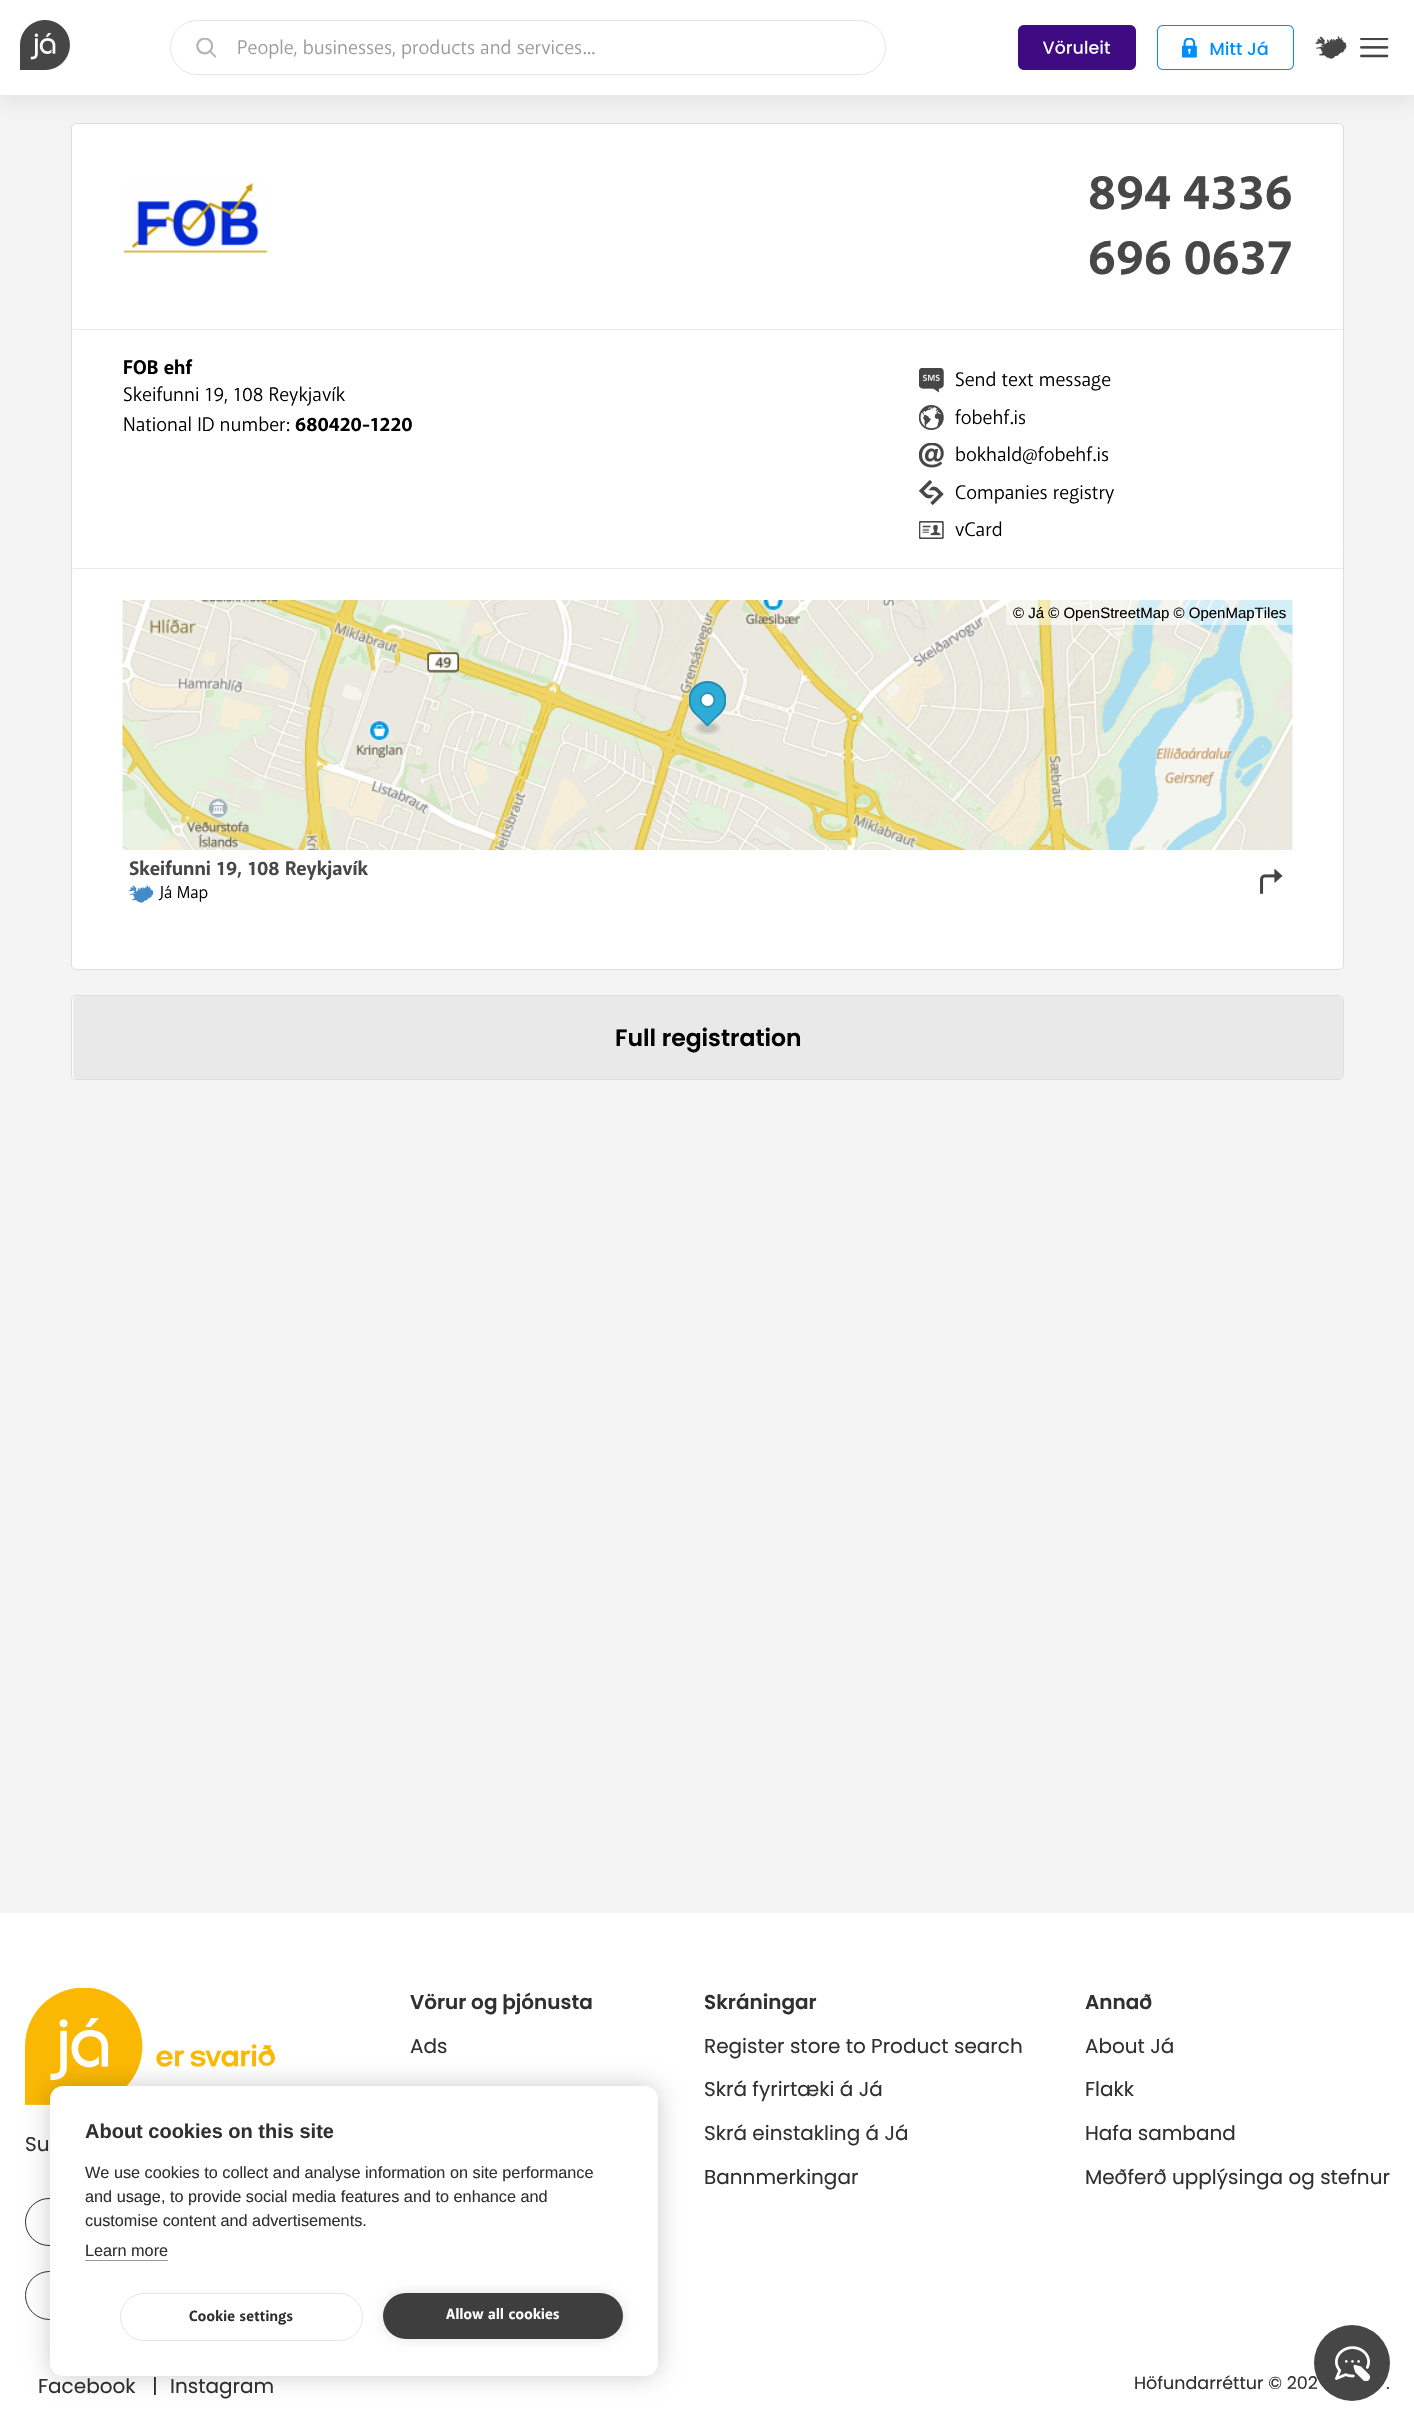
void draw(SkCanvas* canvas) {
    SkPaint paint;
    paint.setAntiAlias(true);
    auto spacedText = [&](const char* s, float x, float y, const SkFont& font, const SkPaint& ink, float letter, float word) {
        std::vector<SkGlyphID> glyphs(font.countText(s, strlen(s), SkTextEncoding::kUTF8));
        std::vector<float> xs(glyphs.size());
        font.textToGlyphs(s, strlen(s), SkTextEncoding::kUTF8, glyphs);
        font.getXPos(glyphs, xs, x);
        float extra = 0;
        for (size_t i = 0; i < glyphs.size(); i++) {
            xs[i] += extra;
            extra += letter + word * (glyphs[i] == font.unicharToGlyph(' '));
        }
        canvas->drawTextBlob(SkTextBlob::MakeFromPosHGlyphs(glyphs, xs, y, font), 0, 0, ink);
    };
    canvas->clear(0xFFF4F4F4);
    paint.setColor(0xFFFFFFFF);
    canvas->drawRoundRect(SkRect::MakeXYWH(71.5f, 123.5f, 1272, 846), 4.5f, 4.5f, paint);
    paint.setStyle(SkPaint::kStroke_Style);
    paint.setStrokeWidth(1);
    paint.setColor(0xFFDDDDDD);
    canvas->drawRoundRect(SkRect::MakeXYWH(71.5f, 123.5f, 1272, 846), 4.5f, 4.5f, paint);
    paint.setStyle(SkPaint::kFill_Style);
    paint.setColor(0x12000000);
    paint.setMaskFilter(SkMaskFilter::MakeBlur(kNormal_SkBlurStyle, 9.5f));
    canvas->drawRect(SkRect::MakeXYWH(0, 6, 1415, 95), paint);
    paint.setMaskFilter(nullptr);
    paint.setColor(0xFFFFFFFF);
    canvas->drawRect(SkRect::MakeXYWH(0, 0, 1414, 95), paint);
    canvas->drawImageRect(SkImages::DeferredFromEncodedData(SkData::MakeFromFileName("img1.png")), SkRect::MakeXYWH(20, 20, 50, 50), SkSamplingOptions());
    paint.setStyle(SkPaint::kStroke_Style);
    paint.setColor(0xFFE5E5E5);
    canvas->drawRoundRect(SkRect::MakeXYWH(170.5f, 20.5f, 715, 54), 27, 27, paint);
    canvas->drawImageRect(SkImages::DeferredFromEncodedData(SkData::MakeFromFileName("img2.png")), SkRect::MakeXYWH(196, 38, 20, 20), SkSamplingOptions());
    SkFont font1(fontMgr->matchFamilyStyle("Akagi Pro", SkFontStyle::Normal()), 20);
    font1.setSubpixel(true);
    paint.setStyle(SkPaint::kFill_Style);
    paint.setColor(0xFF999999);
    canvas->drawString("People, businesses, products and services...", 237, 54, font1, paint);
    canvas->drawImageRect(SkImages::DeferredFromEncodedData(SkData::MakeFromFileName("img3.png")), SkRect::MakeXYWH(1018, 25, 118, 45), SkSamplingOptions());
    canvas->drawImageRect(SkImages::DeferredFromEncodedData(SkData::MakeFromFileName("img4.png")), SkRect::MakeXYWH(1157, 25, 137, 45), SkSamplingOptions());
    canvas->drawImageRect(SkImages::DeferredFromEncodedData(SkData::MakeFromFileName("img5.png")), SkRect::MakeXYWH(1315, 36, 32, 23), SkSamplingOptions());
    canvas->drawImageRect(SkImages::DeferredFromEncodedData(SkData::MakeFromFileName("img6.png")), SkRect::MakeXYWH(1360, 38, 29, 20), SkSamplingOptions());
    paint.setColor(0xFFFFFFFF);
    canvas->drawRect(SkRect::MakeXYWH(0, 1913, 1414, 513), paint);
    canvas->drawImageRect(SkImages::DeferredFromEncodedData(SkData::MakeFromFileName("img7.png")), SkRect::MakeXYWH(25, 1988, 250, 117), SkSamplingOptions());
    SkFont font2(fontMgr->matchFamilyStyle("Poppins", SkFontStyle::Normal()), 20);
    font2.setSubpixel(true);
    paint.setColor(0xFF303030);
    canvas->drawString("Su", 25, 2151, font2, paint);
    paint.setStyle(SkPaint::kStroke_Style);
    canvas->drawRoundRect(SkRect::MakeXYWH(25.5f, 2198.5f, 322, 47), 23.5f, 23.5f, paint);
    canvas->drawRoundRect(SkRect::MakeXYWH(25.5f, 2271.5f, 322, 48), 24, 24, paint);
    SkFont font3(fontMgr->matchFamilyStyle("Poppins", SkFontStyle(600, SkFontStyle::kNormal_Width, SkFontStyle::kUpright_Slant)), 20);
    font3.setSubpixel(true);
    paint.setStyle(SkPaint::kFill_Style);
    canvas->drawString("Vörur og þjónusta", 410, 2009, font3, paint);
    canvas->drawString("Ads", 410, 2053, font2, paint);
    canvas->drawString("Skráningar", 704, 2009, font3, paint);
    canvas->drawString("Register store to Product search", 704, 2053, font2, paint);
    canvas->drawString("Skrá fyrirtæki á Já", 704, 2096, font2, paint);
    canvas->drawString("Skrá einstakling á Já", 704, 2140, font2, paint);
    canvas->drawString("Bannmerkingar", 704, 2184, font2, paint);
    canvas->drawString("Annað", 1085, 2009, font3, paint);
    canvas->drawString("About Já", 1085, 2053, font2, paint);
    canvas->drawString("Flakk", 1085, 2096, font2, paint);
    canvas->drawString("Hafa samband", 1085, 2140, font2, paint);
    canvas->drawString("Meðferð upplýsinga og stefnur", 1085, 2184, font2, paint);
    canvas->drawString("Facebook", 38, 2393, font2, paint);
    canvas->drawString("|", 152, 2393, font2, paint);
    canvas->drawString("Instagram", 170, 2393, font2, paint);
    SkFont font4(fontMgr->matchFamilyStyle("Poppins", SkFontStyle::Normal()), 17.5f);
    font4.setSubpixel(true);
    canvas->drawString("Höfundarréttur © 202", 1134, 2389, font4, paint);
    canvas->drawString(".", 1386, 2389, font4, paint);
    paint.setColor(0xFF464646);
    canvas->drawCircle(1352, 2363, 38, paint);
    canvas->drawImageRect(SkImages::DeferredFromEncodedData(SkData::MakeFromFileName("img8.png")), SkRect::MakeXYWH(1335, 2346, 35, 35), SkSamplingOptions());
    canvas->drawImageRect(SkImages::DeferredFromEncodedData(SkData::MakeFromFileName("img9.png")), SkRect::MakeXYWH(123, 182, 145, 71), SkSamplingOptions());
    SkFont font5(fontMgr->matchFamilyStyle("Akagi Pro", SkFontStyle(600, SkFontStyle::kNormal_Width, SkFontStyle::kUpright_Slant)), 50);
    font5.setSubpixel(true);
    paint.setColor(0xFF474747);
    spacedText("894 4336", 1088, 209, font5, paint, 0, -2);
    spacedText("696 0637", 1088, 274, font5, paint, 0, -2);
    paint.setColor(0xFFE9E9E9);
    canvas->drawRect(SkRect::MakeXYWH(73, 329, 1270, 1), paint);
    SkFont font6(fontMgr->matchFamilyStyle("Akagi Pro", SkFontStyle(600, SkFontStyle::kNormal_Width, SkFontStyle::kUpright_Slant)), 20);
    font6.setSubpixel(true);
    paint.setColor(0xFF000000);
    canvas->drawString("FOB ehf", 123, 374, font6, paint);
    canvas->drawString("Skeifunni 19, 108 Reykjavík", 123, 401, font1, paint);
    canvas->drawString("National ID number:", 123, 431, font1, paint);
    canvas->drawString("680420-1220", 295, 431, font6, paint);
    canvas->drawImageRect(SkImages::DeferredFromEncodedData(SkData::MakeFromFileName("img10.png")), SkRect::MakeXYWH(919, 368, 25, 25), SkSamplingOptions());
    canvas->drawString("Send text message", 955, 386, font1, paint);
    canvas->drawImageRect(SkImages::DeferredFromEncodedData(SkData::MakeFromFileName("img11.png")), SkRect::MakeXYWH(919, 405, 25, 25), SkSamplingOptions());
    canvas->drawString("fobehf.is", 955, 424, font1, paint);
    canvas->drawImageRect(SkImages::DeferredFromEncodedData(SkData::MakeFromFileName("img12.png")), SkRect::MakeXYWH(919, 443, 25, 25), SkSamplingOptions());
    canvas->drawString("bokhald@fobehf.is", 955, 461, font1, paint);
    canvas->drawImageRect(SkImages::DeferredFromEncodedData(SkData::MakeFromFileName("img13.png")), SkRect::MakeXYWH(919, 480, 25, 25), SkSamplingOptions());
    canvas->drawString("Companies registry", 955, 499, font1, paint);
    canvas->drawImageRect(SkImages::DeferredFromEncodedData(SkData::MakeFromFileName("img14.png")), SkRect::MakeXYWH(919, 521, 25, 18), SkSamplingOptions());
    canvas->drawString("vCard", 955, 536, font1, paint);
    paint.setColor(0xFFE9E9E9);
    canvas->drawRect(SkRect::MakeXYWH(73, 568, 1270, 1), paint);
    canvas->drawImageRect(SkImages::DeferredFromEncodedData(SkData::MakeFromFileName("img15.png")), SkRect::MakeXYWH(122, 600, 1171, 250), SkSamplingOptions());
    canvas->drawImageRect(SkImages::DeferredFromEncodedData(SkData::MakeFromFileName("img16.png")), SkRect::MakeXYWH(689, 681, 37, 54), SkSamplingOptions());
    paint.setColor(0x80FFFFFF);
    canvas->drawRect(SkRect::MakeXYWH(1006, 600, 287, 25), paint);
    SkFont font7(fontMgr->matchFamilyStyle("Liberation Sans", SkFontStyle::Normal()), 15);
    font7.setSubpixel(true);
    paint.setColor(0xFF000000);
    canvas->drawString("© Já © OpenStreetMap © OpenMapTiles", 1013, 618, font7, paint);
    paint.setColor(0xFF474747);
    canvas->drawString("Skeifunni 19, 108 Reykjavík", 129, 875, font6, paint);
    canvas->drawImageRect(SkImages::DeferredFromEncodedData(SkData::MakeFromFileName("img17.png")), SkRect::MakeXYWH(129, 885, 25, 18), SkSamplingOptions());
    SkFont font8(fontMgr->matchFamilyStyle("Akagi Pro", SkFontStyle::Normal()), 17.5f);
    font8.setSubpixel(true);
    paint.setColor(0xFF000000);
    canvas->drawString("Já Map", 160, 898, font8, paint);
    canvas->drawImageRect(SkImages::DeferredFromEncodedData(SkData::MakeFromFileName("img18.png")), SkRect::MakeXYWH(1260, 869, 23, 25), SkSamplingOptions());
    paint.setColor(0xFFFFFFFF);
    canvas->drawRoundRect(SkRect::MakeXYWH(71.5f, 995.5f, 1272, 84), 4.5f, 4.5f, paint);
    paint.setStyle(SkPaint::kStroke_Style);
    paint.setColor(0xFFDDDDDD);
    canvas->drawRoundRect(SkRect::MakeXYWH(71.5f, 995.5f, 1272, 84), 4.5f, 4.5f, paint);
    canvas->save();
    canvas->clipPath(SkPathBuilder().moveTo(77, 996).lineTo(1339, 996).cubicTo(1341, 996, 1343, 998, 1343, 1000).lineTo(1343, 1075).cubicTo(1343, 1077, 1341, 1079, 1339, 1079).lineTo(77, 1079).cubicTo(75, 1079, 73, 1077, 73, 1075).lineTo(73, 1000).cubicTo(73, 998, 75, 996, 77, 996).close().detach(), true);
    paint.setStyle(SkPaint::kFill_Style);
    paint.setColor(0xFFE9E9E9);
    canvas->drawPath(SkPathBuilder().moveTo(78, 996).lineTo(1338, 996).cubicTo(1341, 996, 1343, 998, 1343, 1001).lineTo(1343, 1075).cubicTo(1343, 1077, 1341, 1079, 1339, 1079).lineTo(77, 1079).cubicTo(75, 1079, 73, 1077, 73, 1075).lineTo(73, 1001).cubicTo(73, 998, 75, 996, 78, 996).close().detach(), paint);
    canvas->restore();
    SkFont font9(fontMgr->matchFamilyStyle("Poppins", SkFontStyle(600, SkFontStyle::kNormal_Width, SkFontStyle::kUpright_Slant)), 23.5f);
    font9.setSubpixel(true);
    paint.setColor(0xFF000000);
    canvas->drawString("Full registration", 615, 1046, font9, paint);
    paint.setColor(0x33000000);
    paint.setMaskFilter(SkMaskFilter::MakeBlur(kNormal_SkBlurStyle, 12.5f));
    canvas->drawRoundRect(SkRect::MakeXYWH(50, 2086, 608, 290), 13, 13, paint);
    paint.setMaskFilter(nullptr);
    paint.setColor(0xFFFFFFFF);
    canvas->drawRoundRect(SkRect::MakeXYWH(50, 2086, 608, 290), 13, 13, paint);
    SkFont font10(fontMgr->matchFamilyStyle("Liberation Sans", SkFontStyle::Bold()), 20);
    font10.setSubpixel(true);
    paint.setColor(0xFF303030);
    canvas->drawString("About cookies on this site", 85, 2138, font10, paint);
    SkFont font11(fontMgr->matchFamilyStyle("Liberation Sans", SkFontStyle::Normal()), 16.25f);
    font11.setSubpixel(true);
    canvas->drawString("We use cookies to collect and analyse information on site performance", 85, 2178, font11, paint);
    canvas->drawString("and usage, to provide social media features and to enhance and", 85, 2202, font11, paint);
    canvas->drawString("customise content and advertisements.", 85, 2226, font11, paint);
    canvas->drawString("Learn more", 85, 2256, font11, paint);
    paint.setColor(0xFF999999);
    canvas->drawRect(SkRect::MakeXYWH(85, 2260, 83, 1), paint);
    paint.setStyle(SkPaint::kStroke_Style);
    paint.setColor(0xFFE5E5E5);
    canvas->drawRoundRect(SkRect::MakeXYWH(120.5f, 2293.5f, 242, 47), 23.5f, 23.5f, paint);
    SkFont font12(fontMgr->matchFamilyStyle("Akagi Pro", SkFontStyle(600, SkFontStyle::kNormal_Width, SkFontStyle::kUpright_Slant)), 15);
    font12.setSubpixel(true);
    paint.setStyle(SkPaint::kFill_Style);
    paint.setColor(0xFF303030);
    spacedText("Cookie settings", 189, 2321, font12, paint, 0.25f, 0);
    paint.setColor(0x1F000000);
    paint.setMaskFilter(SkMaskFilter::MakeBlur(kNormal_SkBlurStyle, 6));
    canvas->drawRoundRect(SkRect::MakeXYWH(383, 2293, 240, 46), 23, 23, paint);
    paint.setMaskFilter(nullptr);
    paint.setColor(0xFF3E3E3E);
    canvas->drawRoundRect(SkRect::MakeXYWH(383, 2293, 240, 46), 23, 23, paint);
    paint.setColor(0xFFFFFFFF);
    spacedText("Allow all cookies", 446, 2319, font12, paint, 0.25f, 0);
}
